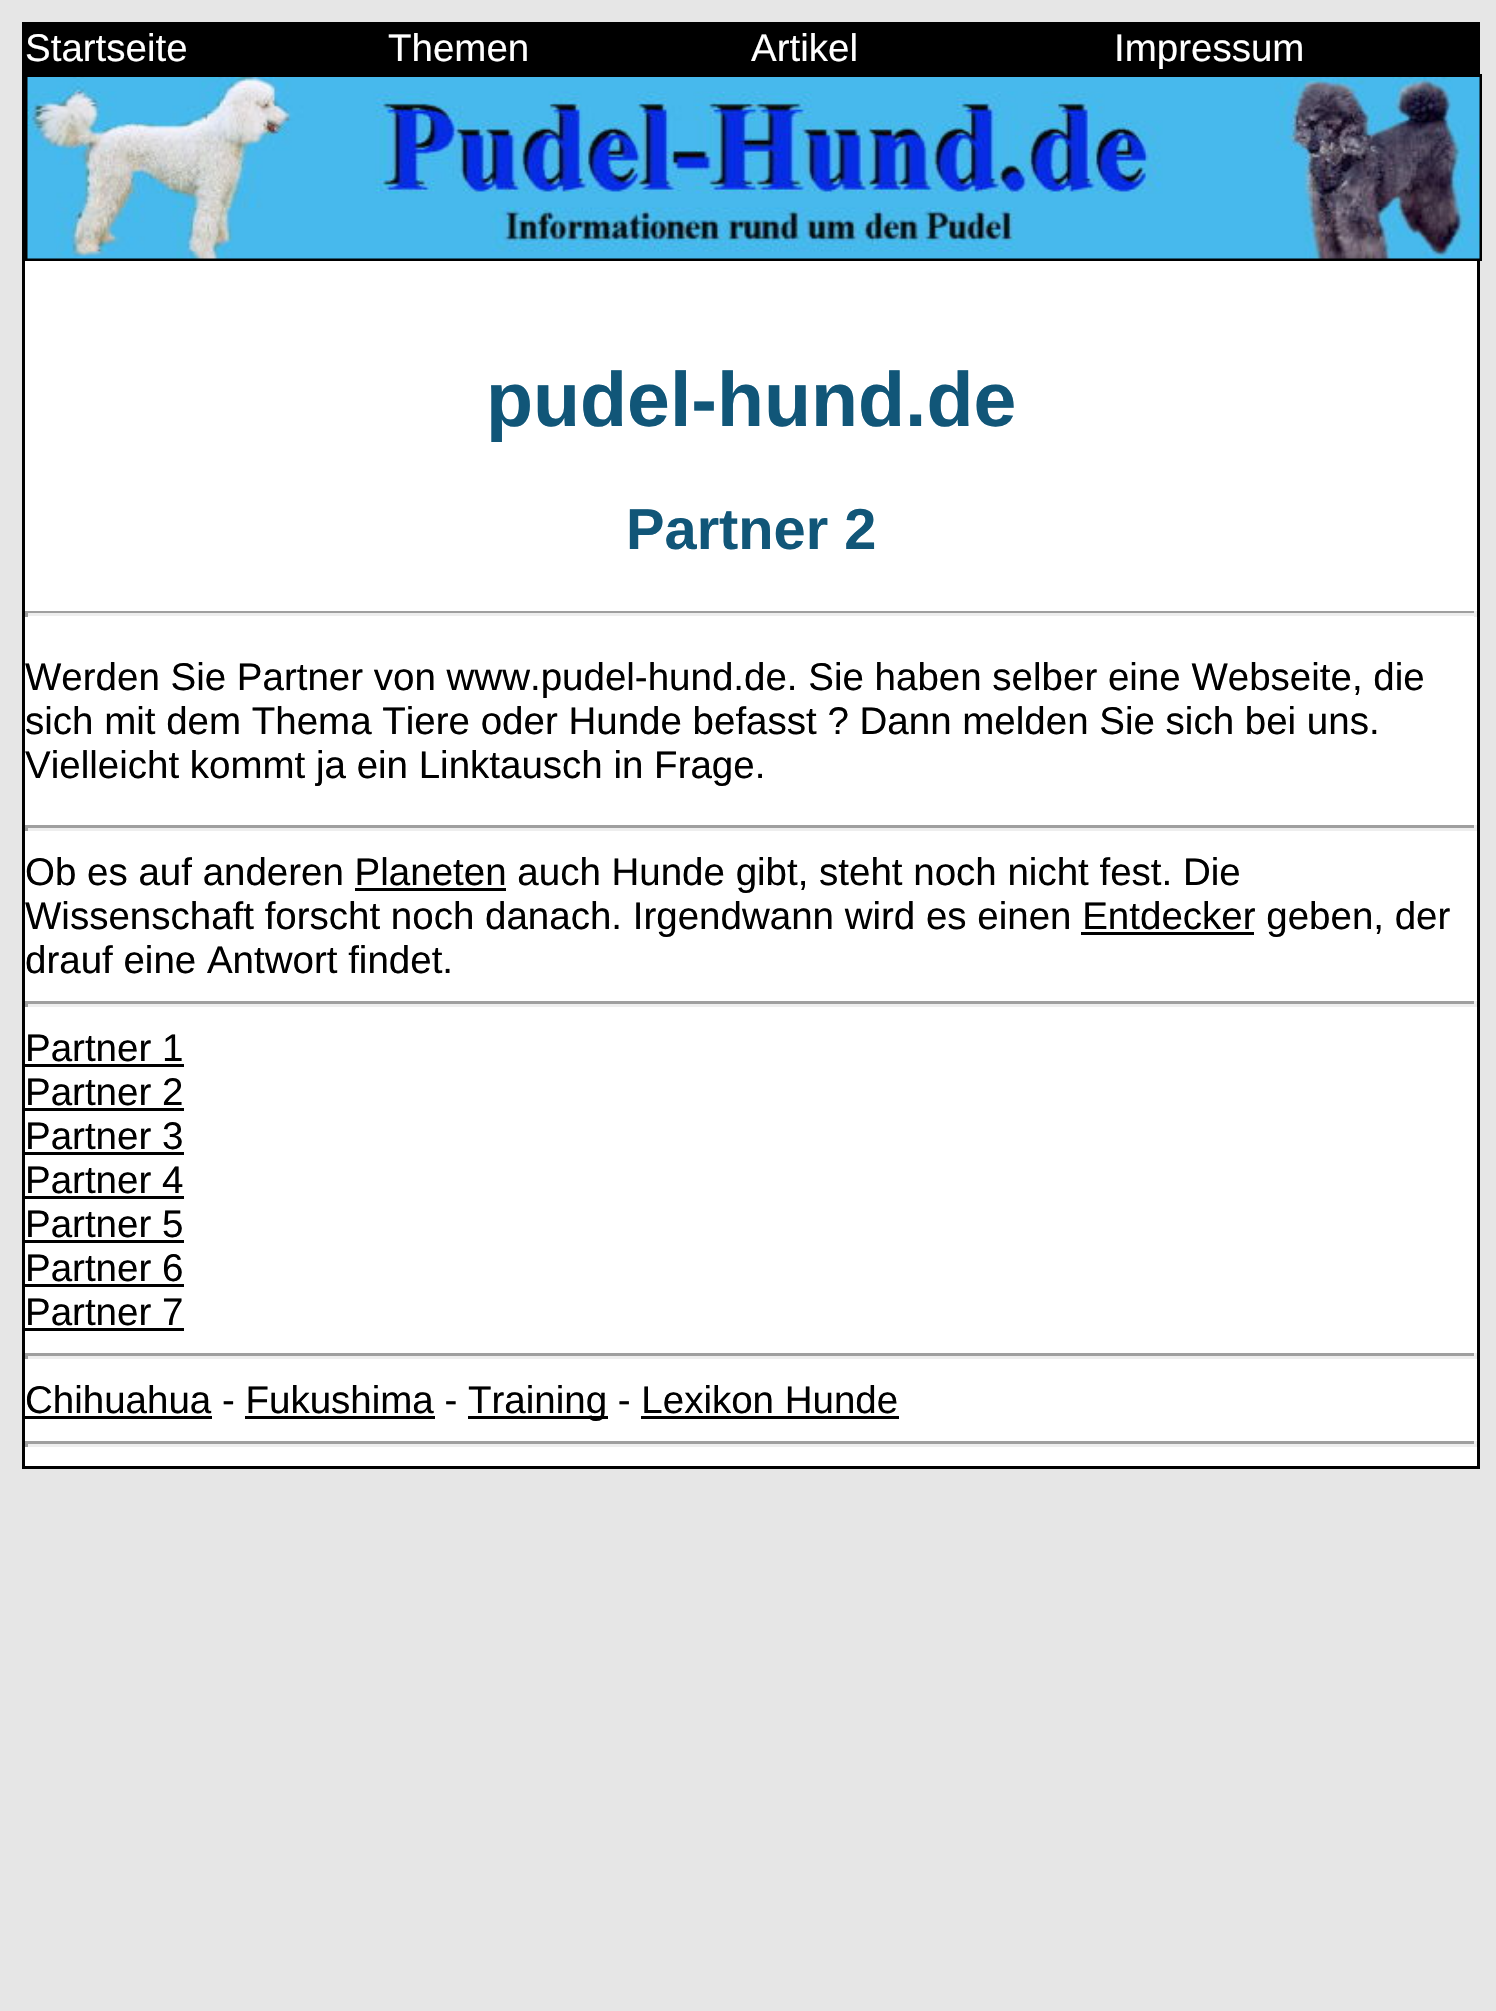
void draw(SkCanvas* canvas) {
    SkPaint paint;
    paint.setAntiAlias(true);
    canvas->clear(0xFFE6E6E6);
    paint.setColor(0xFF000000);
    canvas->drawRect(SkRect::MakeXYWH(22, 22, 1458, 50), paint);
    SkFont font1(fontMgr->matchFamilyStyle("Liberation Sans", SkFontStyle::Normal()), 38.5f);
    font1.setSubpixel(true);
    paint.setColor(0xFFFFFFFF);
    canvas->drawString("Startseite", 25, 61, font1, paint);
    canvas->drawString("Themen", 388, 61, font1, paint);
    canvas->drawString("Artikel", 751, 61, font1, paint);
    canvas->drawString("Impressum", 1114, 61, font1, paint);
    canvas->drawRect(SkRect::MakeXYWH(25, 261, 1452, 1205), paint);
    paint.setStyle(SkPaint::kStroke_Style);
    paint.setStrokeWidth(3);
    paint.setColor(0xFF000000);
    canvas->drawRect(SkRect::MakeXYWH(23.5f, 73.5f, 1455, 1394), paint);
    canvas->drawRect(SkRect::MakeXYWH(26.5f, 75.5f, 1454, 184), paint);
    canvas->drawImageRect(SkImages::DeferredFromEncodedData(SkData::MakeFromFileName("img1.png")), SkRect::MakeXYWH(27, 77, 1453, 182), SkSamplingOptions());
    SkFont font2(fontMgr->matchFamilyStyle("Liberation Sans", SkFontStyle::Bold()), 77);
    font2.setSubpixel(true);
    paint.setStyle(SkPaint::kFill_Style);
    paint.setColor(0xFF115678);
    canvas->drawString("pudel-hund.de", 486, 426, font2, paint);
    SkFont font3(fontMgr->matchFamilyStyle("Liberation Sans", SkFontStyle::Bold()), 57.75f);
    font3.setSubpixel(true);
    canvas->drawString("Partner 2", 626, 549, font3, paint);
    paint.setColor(0xFF9F9F9F);
    canvas->drawRect(SkRect::MakeXYWH(25, 611, 1452, 2), paint);
    paint.setColor(0xFFEEEEEE);
    canvas->drawRect(SkRect::MakeXYWH(1474, 611, 3, 6), paint);
    canvas->drawRect(SkRect::MakeXYWH(25, 613, 1452, 3), paint);
    paint.setColor(0xFF9F9F9F);
    canvas->drawRect(SkRect::MakeXYWH(25, 611, 3, 6), paint);
    paint.setColor(0xFF000000);
    canvas->drawString("Werden Sie Partner von www.pudel-hund.de. Sie haben selber eine Webseite, die", 25, 690, font1, paint);
    canvas->drawString("sich mit dem Thema Tiere oder Hunde befasst ? Dann melden Sie sich bei uns.", 25, 734, font1, paint);
    canvas->drawString("Vielleicht kommt ja ein Linktausch in Frage.", 25, 778, font1, paint);
    paint.setColor(0xFF9F9F9F);
    canvas->drawRect(SkRect::MakeXYWH(25, 825, 1452, 3), paint);
    paint.setColor(0xFFEEEEEE);
    canvas->drawRect(SkRect::MakeXYWH(1474, 825, 3, 6), paint);
    canvas->drawRect(SkRect::MakeXYWH(25, 828, 1452, 3), paint);
    paint.setColor(0xFF9F9F9F);
    canvas->drawRect(SkRect::MakeXYWH(25, 825, 3, 6), paint);
    paint.setColor(0xFF000000);
    canvas->drawString("Ob es auf anderen Planeten auch Hunde gibt, steht noch nicht fest. Die", 25, 885, font1, paint);
    canvas->drawRect(SkRect::MakeXYWH(355, 888, 151, 3), paint);
    canvas->drawString("Wissenschaft forscht noch danach. Irgendwann wird es einen Entdecker geben, der", 25, 929, font1, paint);
    canvas->drawRect(SkRect::MakeXYWH(1081, 932, 173, 3), paint);
    canvas->drawString("drauf eine Antwort findet.", 25, 973, font1, paint);
    paint.setColor(0xFF9F9F9F);
    canvas->drawRect(SkRect::MakeXYWH(25, 1001, 1452, 3), paint);
    paint.setColor(0xFFEEEEEE);
    canvas->drawRect(SkRect::MakeXYWH(1474, 1001, 3, 6), paint);
    canvas->drawRect(SkRect::MakeXYWH(25, 1004, 1452, 3), paint);
    paint.setColor(0xFF9F9F9F);
    canvas->drawRect(SkRect::MakeXYWH(25, 1001, 3, 6), paint);
    paint.setColor(0xFF000000);
    canvas->drawString("Partner 1", 25, 1061, font1, paint);
    canvas->drawRect(SkRect::MakeXYWH(25, 1064, 159, 3), paint);
    canvas->drawString("Partner 2", 25, 1105, font1, paint);
    canvas->drawRect(SkRect::MakeXYWH(25, 1108, 159, 3), paint);
    canvas->drawString("Partner 3", 25, 1149, font1, paint);
    canvas->drawRect(SkRect::MakeXYWH(25, 1152, 159, 3), paint);
    canvas->drawString("Partner 4", 25, 1193, font1, paint);
    canvas->drawRect(SkRect::MakeXYWH(25, 1196, 159, 3), paint);
    canvas->drawString("Partner 5", 25, 1237, font1, paint);
    canvas->drawRect(SkRect::MakeXYWH(25, 1240, 159, 3), paint);
    canvas->drawString("Partner 6", 25, 1281, font1, paint);
    canvas->drawRect(SkRect::MakeXYWH(25, 1284, 159, 3), paint);
    canvas->drawString("Partner 7", 25, 1325, font1, paint);
    canvas->drawRect(SkRect::MakeXYWH(25, 1328, 159, 3), paint);
    paint.setColor(0xFF9F9F9F);
    canvas->drawRect(SkRect::MakeXYWH(25, 1353, 1452, 3), paint);
    paint.setColor(0xFFEEEEEE);
    canvas->drawRect(SkRect::MakeXYWH(1474, 1353, 3, 6), paint);
    canvas->drawRect(SkRect::MakeXYWH(25, 1356, 1452, 3), paint);
    paint.setColor(0xFF9F9F9F);
    canvas->drawRect(SkRect::MakeXYWH(25, 1353, 3, 6), paint);
    paint.setColor(0xFF000000);
    canvas->drawString("Chihuahua - Fukushima -", 25, 1413, font1, paint);
    canvas->drawRect(SkRect::MakeXYWH(25, 1416, 187, 3), paint);
    canvas->drawRect(SkRect::MakeXYWH(468, 1416, 140, 3), paint);
    canvas->drawString("Training - Lexikon Hunde", 468, 1413, font1, paint);
    canvas->drawRect(SkRect::MakeXYWH(245, 1416, 190, 3), paint);
    canvas->drawRect(SkRect::MakeXYWH(641, 1416, 258, 3), paint);
    paint.setColor(0xFF9F9F9F);
    canvas->drawRect(SkRect::MakeXYWH(25, 1441, 1452, 3), paint);
    paint.setColor(0xFFEEEEEE);
    canvas->drawRect(SkRect::MakeXYWH(1474, 1441, 3, 6), paint);
    canvas->drawRect(SkRect::MakeXYWH(25, 1444, 1452, 3), paint);
    paint.setColor(0xFF9F9F9F);
    canvas->drawRect(SkRect::MakeXYWH(25, 1441, 3, 6), paint);
}
